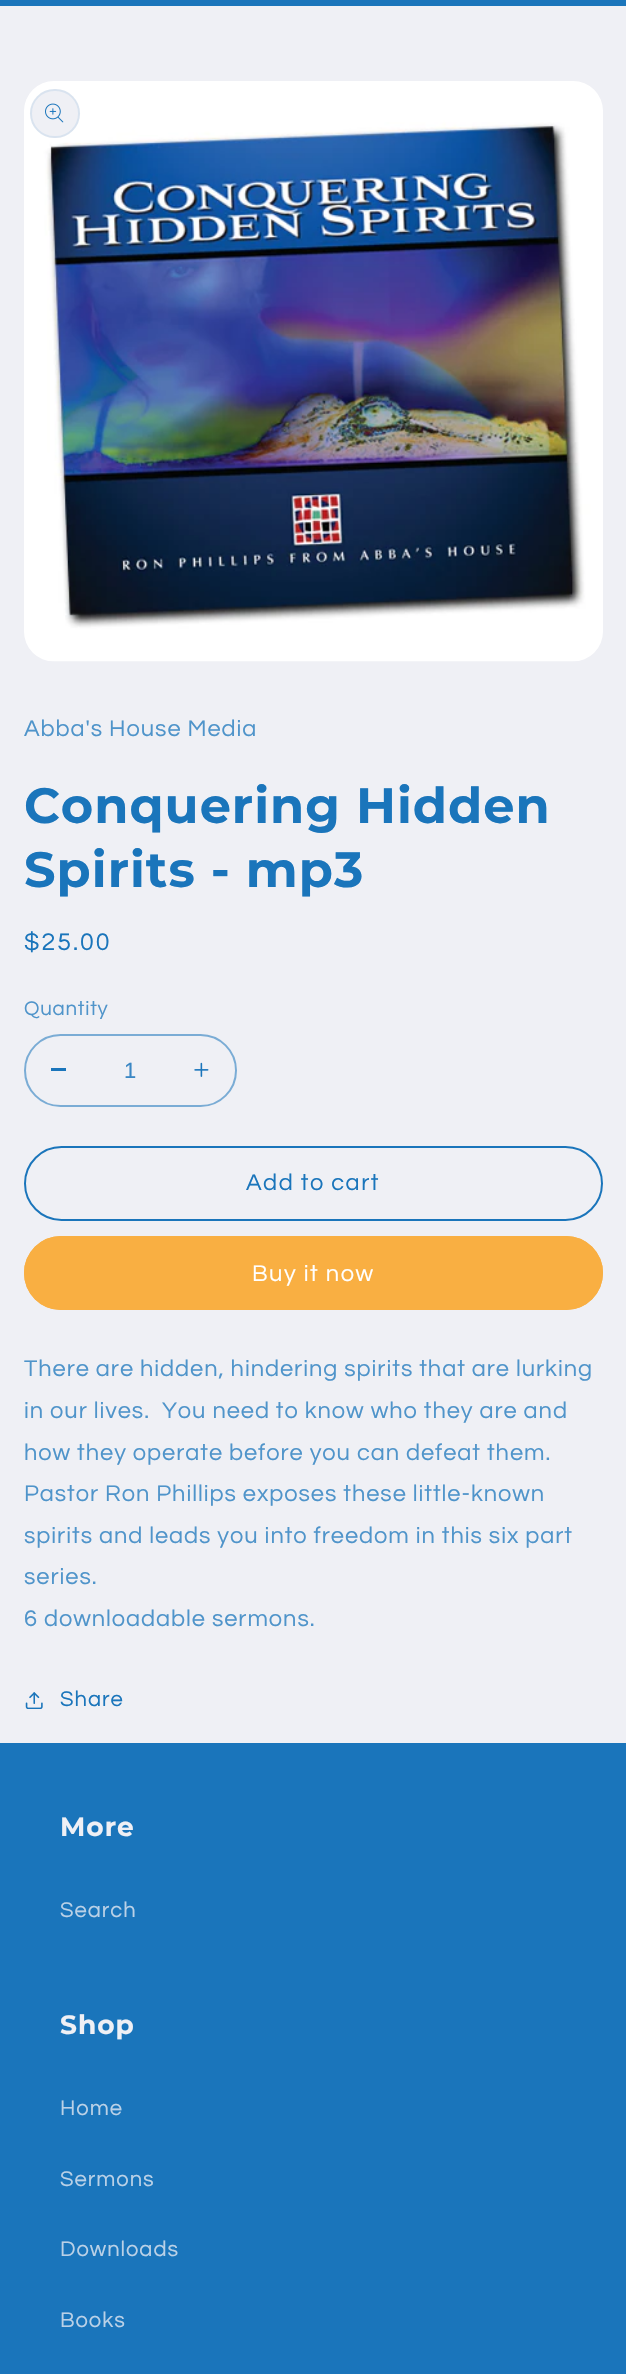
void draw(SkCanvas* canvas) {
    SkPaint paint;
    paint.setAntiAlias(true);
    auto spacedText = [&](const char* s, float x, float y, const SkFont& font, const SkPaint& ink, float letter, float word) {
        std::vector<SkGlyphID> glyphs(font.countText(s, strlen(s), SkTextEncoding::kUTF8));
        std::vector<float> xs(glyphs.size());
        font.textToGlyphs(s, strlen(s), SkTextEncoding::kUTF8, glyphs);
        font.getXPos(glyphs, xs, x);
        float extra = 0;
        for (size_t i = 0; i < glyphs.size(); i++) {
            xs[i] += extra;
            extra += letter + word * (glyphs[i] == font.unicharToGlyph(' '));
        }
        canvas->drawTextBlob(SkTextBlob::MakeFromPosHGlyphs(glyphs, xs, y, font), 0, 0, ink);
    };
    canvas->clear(0xFFEFF0F5);
    paint.setColor(0xFF1A75BB);
    canvas->drawRect(SkRect::MakeXYWH(0, 0, 626, 6), paint);
    canvas->drawImageRect(SkImages::DeferredFromEncodedData(SkData::MakeFromFileName("img1.png")), SkRect::MakeXYWH(24, 81, 579, 581), SkSamplingOptions());
    paint.setColor(0xFFEFF0F5);
    canvas->drawRoundRect(SkRect::MakeXYWH(30, 89, 50, 49), 24.5f, 24.5f, paint);
    paint.setStyle(SkPaint::kStroke_Style);
    paint.setStrokeWidth(2);
    paint.setColor(0x1A1A75BB);
    canvas->drawRoundRect(SkRect::MakeXYWH(31, 90, 48, 47), 23.5f, 23.5f, paint);
    canvas->drawImageRect(SkImages::DeferredFromEncodedData(SkData::MakeFromFileName("img2.png")), SkRect::MakeXYWH(45, 103, 19, 20), SkSamplingOptions());
    SkFont font1(fontMgr->matchFamilyStyle("Questrial", SkFontStyle::Normal()), 23.6f);
    font1.setSubpixel(true);
    paint.setStyle(SkPaint::kFill_Style);
    paint.setColor(0xFF4F94CA);
    spacedText("Abba's House Media", 24, 736, font1, paint, 0.95f, 0);
    SkFont font2(fontMgr->matchFamilyStyle("Montserrat", SkFontStyle::Bold()), 49.5f);
    font2.setSubpixel(true);
    paint.setColor(0xFF1A75BB);
    spacedText("Conquering Hidden", 24, 823, font2, paint, 1, 0);
    spacedText("Spirits - mp3", 24, 887, font2, paint, 1, 0);
    SkFont font3(fontMgr->matchFamilyStyle("Questrial", SkFontStyle::Normal()), 25);
    font3.setSubpixel(true);
    spacedText("$25.00", 24, 950, font3, paint, 2, 0);
    SkFont font4(fontMgr->matchFamilyStyle("Questrial", SkFontStyle::Normal()), 20.5f);
    font4.setSubpixel(true);
    paint.setColor(0xFF4F94CA);
    spacedText("Quantity", 24, 1015, font4, paint, 0.75f, 0);
    paint.setColor(0xFF1A75BB);
    canvas->drawRect(SkRect::MakeXYWH(51, 1068, 15, 3), paint);
    canvas->drawImageRect(SkImages::DeferredFromEncodedData(SkData::MakeFromFileName("img3.png")), SkRect::MakeXYWH(194, 1062, 15, 15), SkSamplingOptions());
    paint.setStyle(SkPaint::kStroke_Style);
    paint.setColor(0xFF7AACD5);
    canvas->drawRoundRect(SkRect::MakeXYWH(25, 1035, 211, 71), 35.5f, 35.5f, paint);
    SkFont font5(fontMgr->matchFamilyStyle("Liberation Sans", SkFontStyle::Normal()), 22);
    font5.setSubpixel(true);
    paint.setStyle(SkPaint::kFill_Style);
    paint.setColor(0xFF3A87C4);
    canvas->drawString("1", 124, 1078, font5, paint);
    paint.setStyle(SkPaint::kStroke_Style);
    paint.setColor(0xFF1A75BB);
    canvas->drawRoundRect(SkRect::MakeXYWH(25, 1147, 577, 73), 36.5f, 36.5f, paint);
    paint.setStyle(SkPaint::kFill_Style);
    spacedText("Add to cart", 246, 1190, font1, paint, 1.5f, 0);
    paint.setColor(0xFFF9AF42);
    canvas->drawRoundRect(SkRect::MakeXYWH(24, 1236, 579, 74), 37, 37, paint);
    paint.setStyle(SkPaint::kStroke_Style);
    canvas->drawRoundRect(SkRect::MakeXYWH(25, 1237, 577, 72), 36, 36, paint);
    paint.setStyle(SkPaint::kFill_Style);
    paint.setColor(0xFFFFFFFF);
    spacedText("Buy it now", 252, 1281, font1, paint, 1.5f, 0);
    paint.setColor(0xFF4F94CA);
    spacedText("There are hidden, hindering spirits that are lurking", 24, 1376, font1, paint, 0.95f, 0);
    spacedText("in our lives.  You need to know who they are and", 24, 1418, font1, paint, 0.95f, 0);
    spacedText("how they operate before you can defeat them.", 24, 1460, font1, paint, 0.95f, 0);
    spacedText("Pastor Ron Phillips exposes these little-known", 24, 1501, font1, paint, 0.95f, 0);
    spacedText("spirits and leads you into freedom in this six part", 24, 1543, font1, paint, 0.95f, 0);
    spacedText("series.", 24, 1584, font1, paint, 0.95f, 0);
    spacedText("6 downloadable sermons.", 24, 1626, font1, paint, 0.95f, 0);
    canvas->drawImageRect(SkImages::DeferredFromEncodedData(SkData::MakeFromFileName("img4.png")), SkRect::MakeXYWH(25, 1692, 18, 17), SkSamplingOptions());
    SkFont font6(fontMgr->matchFamilyStyle("Questrial", SkFontStyle::Normal()), 22);
    font6.setSubpixel(true);
    paint.setColor(0xFF1A75BB);
    spacedText("Share", 60, 1706, font6, paint, 0.95f, 0);
    canvas->drawRect(SkRect::MakeXYWH(0, 1743, 626, 631), paint);
    SkFont font7(fontMgr->matchFamilyStyle("Montserrat", SkFontStyle::Bold()), 26.5f);
    font7.setSubpixel(true);
    paint.setColor(0xFFEFF0F5);
    spacedText("More", 60, 1836, font7, paint, 1, 0);
    paint.setColor(0xFFBAD1E7);
    spacedText("Search", 60, 1917, font6, paint, 0.95f, 0);
    paint.setColor(0xFFEFF0F5);
    spacedText("Shop", 60, 2034, font7, paint, 1, 0);
    paint.setColor(0xFFBAD1E7);
    spacedText("Home", 60, 2115, font6, paint, 0.95f, 0);
    spacedText("Sermons", 60, 2186, font6, paint, 0.95f, 0);
    spacedText("Downloads", 60, 2256, font6, paint, 0.95f, 0);
    spacedText("Books", 60, 2327, font6, paint, 0.95f, 0);
}
